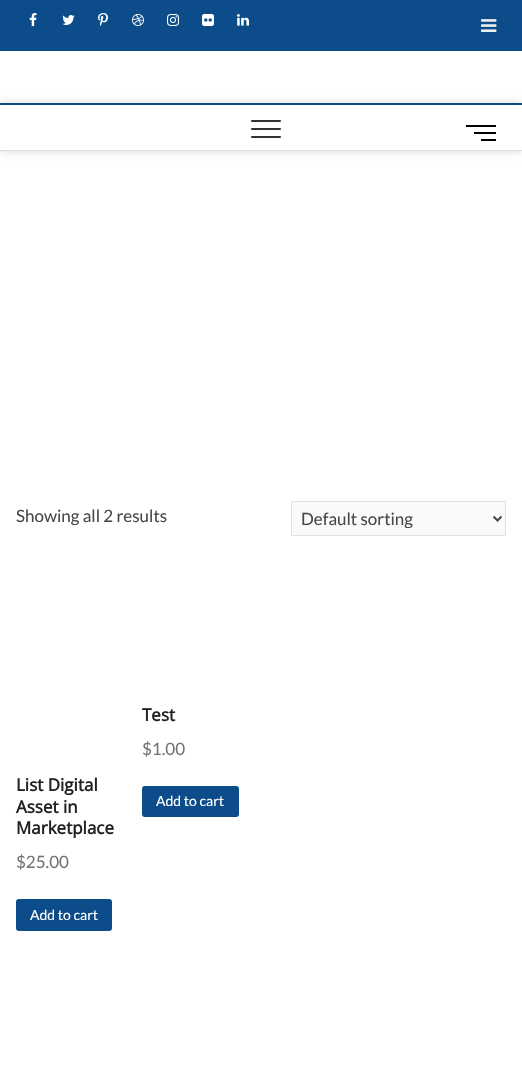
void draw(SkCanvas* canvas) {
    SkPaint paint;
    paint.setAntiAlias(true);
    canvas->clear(0xFFFFFFFF);
    paint.setColor(0xFF0C4C8A);
    canvas->drawRect(SkRect::MakeXYWH(0, 0, 522, 51), paint);
    canvas->drawImageRect(SkImages::DeferredFromEncodedData(SkData::MakeFromFileName("img1.png")), SkRect::MakeXYWH(29, 13, 8, 13), SkSamplingOptions());
    canvas->drawImageRect(SkImages::DeferredFromEncodedData(SkData::MakeFromFileName("img2.png")), SkRect::MakeXYWH(62, 15, 13, 10), SkSamplingOptions());
    canvas->drawImageRect(SkImages::DeferredFromEncodedData(SkData::MakeFromFileName("img3.png")), SkRect::MakeXYWH(98, 13, 10, 13), SkSamplingOptions());
    canvas->drawImageRect(SkImages::DeferredFromEncodedData(SkData::MakeFromFileName("img4.png")), SkRect::MakeXYWH(132, 14, 12, 12), SkSamplingOptions());
    canvas->drawImageRect(SkImages::DeferredFromEncodedData(SkData::MakeFromFileName("img5.png")), SkRect::MakeXYWH(167, 14, 12, 12), SkSamplingOptions());
    canvas->drawImageRect(SkImages::DeferredFromEncodedData(SkData::MakeFromFileName("img6.png")), SkRect::MakeXYWH(202, 14, 12, 12), SkSamplingOptions());
    canvas->drawImageRect(SkImages::DeferredFromEncodedData(SkData::MakeFromFileName("img7.png")), SkRect::MakeXYWH(237, 14, 12, 12), SkSamplingOptions());
    canvas->drawImageRect(SkImages::DeferredFromEncodedData(SkData::MakeFromFileName("img8.png")), SkRect::MakeXYWH(481, 19, 16, 13), SkSamplingOptions());
    canvas->save();
    canvas->clipPath(SkPathBuilder(SkPathFillType::kEvenOdd).moveTo(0, 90).lineTo(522, 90).lineTo(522, 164).lineTo(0, 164).close().moveTo(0, 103).lineTo(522, 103).lineTo(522, 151).lineTo(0, 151).close().detach(), true);
    paint.setColor(0x26000000);
    paint.setMaskFilter(SkMaskFilter::MakeBlur(kNormal_SkBlurStyle, 4));
    canvas->drawRect(SkRect::MakeXYWH(0, 103, 522, 48), paint);
    paint.setMaskFilter(nullptr);
    canvas->restore();
    paint.setColor(0xFF0C4C8A);
    canvas->drawRect(SkRect::MakeXYWH(0, 103, 522, 2), paint);
    paint.setColor(0xFFDDDDDD);
    canvas->drawRect(SkRect::MakeXYWH(0, 150, 522, 1), paint);
    paint.setColor(0xFF333333);
    canvas->drawRoundRect(SkRect::MakeXYWH(251, 128, 30, 2), 1, 1, paint);
    canvas->drawRoundRect(SkRect::MakeXYWH(251, 120, 30, 2), 1, 1, paint);
    canvas->drawRoundRect(SkRect::MakeXYWH(251, 136, 30, 2), 1, 1, paint);
    paint.setColor(0xFF000000);
    canvas->drawRect(SkRect::MakeXYWH(474, 132, 22, 2), paint);
    canvas->drawRect(SkRect::MakeXYWH(466, 125, 30, 2), paint);
    canvas->drawRect(SkRect::MakeXYWH(481, 139, 15, 2), paint);
    SkFont font1(fontMgr->matchFamilyStyle("Lato", SkFontStyle::Normal()), 17);
    font1.setSubpixel(true);
    paint.setColor(0xFF484848);
    canvas->drawString("Showing all 2 results", 16, 522, font1, paint);
    paint.setColor(0xFFFAFAFA);
    canvas->drawRect(SkRect::MakeXYWH(291.5f, 501.5f, 214, 34), paint);
    paint.setStyle(SkPaint::kStroke_Style);
    paint.setStrokeWidth(1);
    paint.setColor(0xFFE1E1E1);
    canvas->drawRect(SkRect::MakeXYWH(291.5f, 501.5f, 214, 34), paint);
    paint.setStrokeWidth(2);
    paint.setColor(0xFF484848);
    canvas->drawPath(SkPathBuilder().moveTo(493.5f, 516.5f).lineTo(497.5f, 520.5f).lineTo(501.5f, 516.5f).detach(), paint);
    paint.setStyle(SkPaint::kFill_Style);
    canvas->drawString("Default sorting", 301, 525, font1, paint);
    SkFont font2(fontMgr->matchFamilyStyle("Open Sans", SkFontStyle::Bold()), 17);
    font2.setSubpixel(true);
    paint.setColor(0xFF222222);
    canvas->drawString("Test", 142, 721, font2, paint);
    paint.setColor(0xFF747474);
    canvas->drawString("$1.00", 142, 755, font1, paint);
    paint.setColor(0xFF0C4C8A);
    canvas->drawRoundRect(SkRect::MakeXYWH(142, 786, 97, 31), 3, 3, paint);
    SkFont font3(fontMgr->matchFamilyStyle("Lato", SkFontStyle::Normal()), 14);
    font3.setSubpixel(true);
    paint.setColor(0xFFFFFFFF);
    canvas->drawString("Add to cart", 156, 806, font3, paint);
    paint.setColor(0xFF222222);
    canvas->drawString("List Digital", 16, 791, font2, paint);
    canvas->drawString("Asset in", 16, 813, font2, paint);
    canvas->drawString("Marketplace", 16, 834, font2, paint);
    paint.setColor(0xFF747474);
    canvas->drawString("$25.00", 16, 868, font1, paint);
    paint.setColor(0xFF0C4C8A);
    canvas->drawRoundRect(SkRect::MakeXYWH(16, 899, 96, 32), 3, 3, paint);
    paint.setColor(0xFFFFFFFF);
    canvas->drawString("Add to cart", 30, 920, font3, paint);
}
